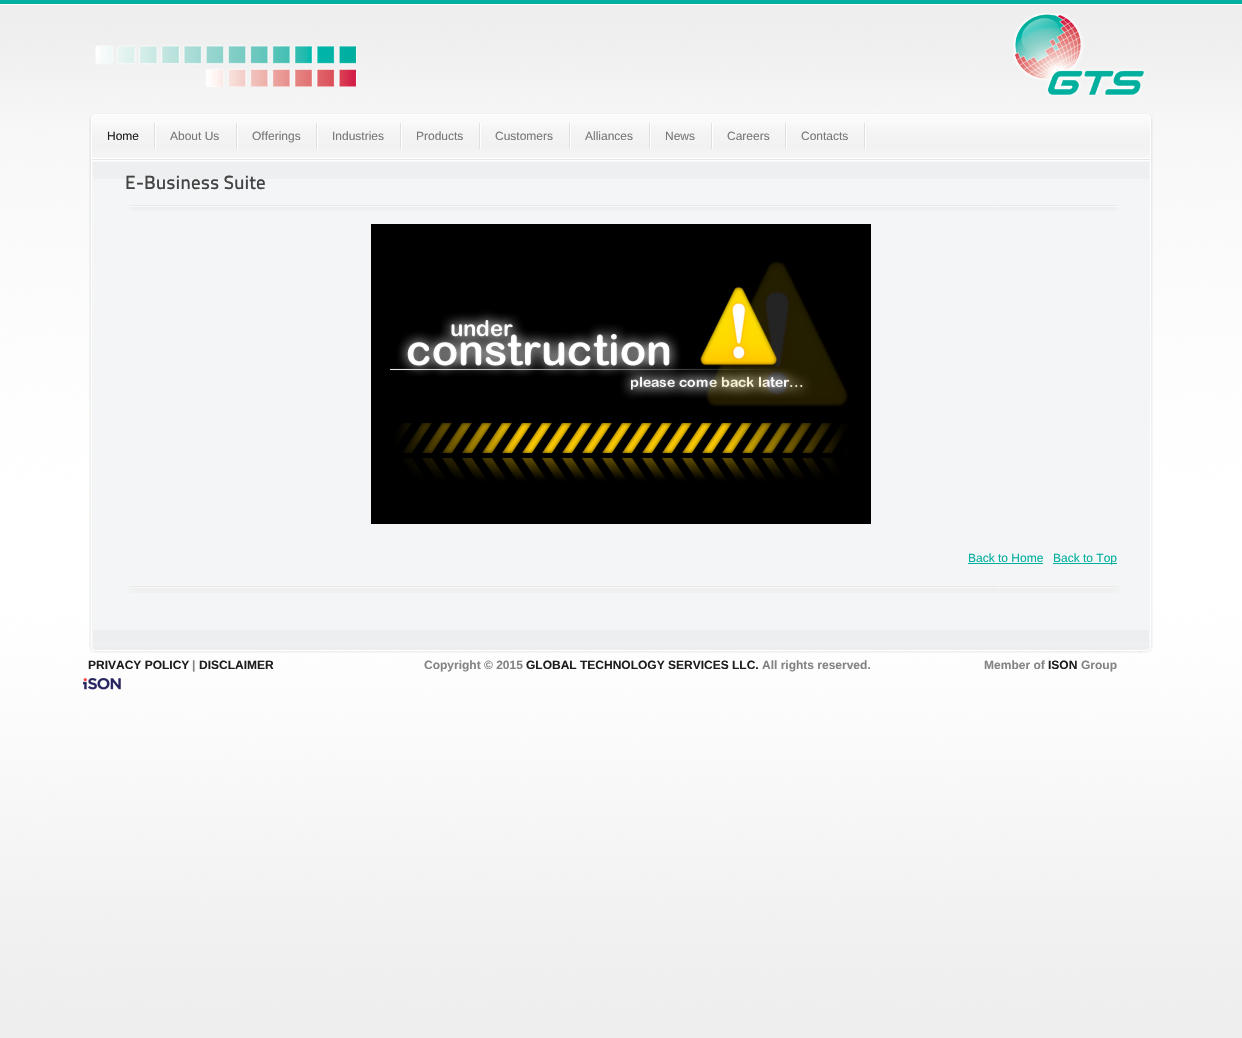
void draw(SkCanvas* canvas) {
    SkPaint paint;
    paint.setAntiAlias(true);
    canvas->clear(0xFFFFFFFF);
    canvas->drawImageRect(SkImages::DeferredFromEncodedData(SkData::MakeFromFileName("img1.png")), SkRect::MakeXYWH(0, 0, 1242, 1038), SkSamplingOptions());
    canvas->drawImageRect(SkImages::DeferredFromEncodedData(SkData::MakeFromFileName("img2.png")), SkRect::MakeXYWH(95, 45, 262, 42), SkSamplingOptions());
    canvas->drawImageRect(SkImages::DeferredFromEncodedData(SkData::MakeFromFileName("img3.png")), SkRect::MakeXYWH(1013, 13, 132, 83), SkSamplingOptions());
    canvas->drawImageRect(SkImages::DeferredFromEncodedData(SkData::MakeFromFileName("img4.png")), SkRect::MakeXYWH(89, 113, 1064, 48), SkSamplingOptions());
    canvas->drawImageRect(SkImages::DeferredFromEncodedData(SkData::MakeFromFileName("img5.png")), SkRect::MakeXYWH(154, 123, 2, 26), SkSamplingOptions());
    SkFont font1(fontMgr->matchFamilyStyle("Liberation Sans", SkFontStyle::Normal()), 12);
    font1.setSubpixel(true);
    paint.setColor(0xFF1E1E1E);
    canvas->drawString("Home", 107, 140, font1, paint);
    canvas->drawImageRect(SkImages::DeferredFromEncodedData(SkData::MakeFromFileName("img5.png")), SkRect::MakeXYWH(236, 123, 2, 26), SkSamplingOptions());
    paint.setColor(0xFF777777);
    canvas->drawString("About Us", 170, 140, font1, paint);
    canvas->drawImageRect(SkImages::DeferredFromEncodedData(SkData::MakeFromFileName("img5.png")), SkRect::MakeXYWH(316, 123, 2, 26), SkSamplingOptions());
    canvas->drawString("Offerings", 252, 140, font1, paint);
    canvas->drawImageRect(SkImages::DeferredFromEncodedData(SkData::MakeFromFileName("img5.png")), SkRect::MakeXYWH(400, 123, 2, 26), SkSamplingOptions());
    canvas->drawString("Industries", 332, 140, font1, paint);
    canvas->drawImageRect(SkImages::DeferredFromEncodedData(SkData::MakeFromFileName("img5.png")), SkRect::MakeXYWH(479, 123, 2, 26), SkSamplingOptions());
    canvas->drawString("Products", 416, 140, font1, paint);
    canvas->drawImageRect(SkImages::DeferredFromEncodedData(SkData::MakeFromFileName("img5.png")), SkRect::MakeXYWH(569, 123, 2, 26), SkSamplingOptions());
    canvas->drawString("Customers", 495, 140, font1, paint);
    canvas->drawImageRect(SkImages::DeferredFromEncodedData(SkData::MakeFromFileName("img5.png")), SkRect::MakeXYWH(649, 123, 2, 26), SkSamplingOptions());
    canvas->drawString("Alliances", 585, 140, font1, paint);
    canvas->drawImageRect(SkImages::DeferredFromEncodedData(SkData::MakeFromFileName("img5.png")), SkRect::MakeXYWH(711, 123, 2, 26), SkSamplingOptions());
    canvas->drawString("News", 665, 140, font1, paint);
    canvas->drawImageRect(SkImages::DeferredFromEncodedData(SkData::MakeFromFileName("img5.png")), SkRect::MakeXYWH(785, 123, 2, 26), SkSamplingOptions());
    canvas->drawString("Careers", 727, 140, font1, paint);
    canvas->drawImageRect(SkImages::DeferredFromEncodedData(SkData::MakeFromFileName("img5.png")), SkRect::MakeXYWH(864, 123, 2, 26), SkSamplingOptions());
    canvas->drawString("Contacts", 801, 140, font1, paint);
    canvas->drawImageRect(SkImages::DeferredFromEncodedData(SkData::MakeFromFileName("img6.png")), SkRect::MakeXYWH(89, 161, 1064, 485), SkSamplingOptions());
    paint.setColor(0xFFEFF0F1);
    canvas->drawRect(SkRect::MakeXYWH(93, 643, 1056, 3), paint);
    paint.setColor(0xFFEEEFF0);
    canvas->drawRect(SkRect::MakeXYWH(93, 162, 1056, 17), paint);
    SkFont font2(fontMgr->matchFamilyStyle("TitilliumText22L", SkFontStyle(500, SkFontStyle::kNormal_Width, SkFontStyle::kUpright_Slant)), 19);
    font2.setSubpixel(true);
    paint.setColor(0xFF444444);
    canvas->drawString("E-Business Suite", 125, 189, font2, paint);
    canvas->drawImageRect(SkImages::DeferredFromEncodedData(SkData::MakeFromFileName("img7.png")), SkRect::MakeXYWH(128, 205, 872, 6), SkSamplingOptions());
    canvas->drawImageRect(SkImages::DeferredFromEncodedData(SkData::MakeFromFileName("img8.png")), SkRect::MakeXYWH(1000, 205, 119, 6), SkSamplingOptions());
    canvas->drawImageRect(SkImages::DeferredFromEncodedData(SkData::MakeFromFileName("img9.png")), SkRect::MakeXYWH(371, 224, 500, 300), SkSamplingOptions());
    paint.setColor(0xFF00AF9F);
    canvas->drawString("Back to Home", 968, 562, font1, paint);
    canvas->drawRect(SkRect::MakeXYWH(968, 563, 75, 1), paint);
    canvas->drawRect(SkRect::MakeXYWH(1053, 563, 64, 1), paint);
    canvas->drawString("Back to Top", 1053, 562, font1, paint);
    canvas->drawImageRect(SkImages::DeferredFromEncodedData(SkData::MakeFromFileName("img10.png")), SkRect::MakeXYWH(128, 586, 872, 7), SkSamplingOptions());
    canvas->drawImageRect(SkImages::DeferredFromEncodedData(SkData::MakeFromFileName("img11.png")), SkRect::MakeXYWH(1000, 586, 119, 7), SkSamplingOptions());
    paint.setColor(0xFFEDEEEF);
    canvas->drawRect(SkRect::MakeXYWH(93, 630, 1056, 13), paint);
    canvas->drawImageRect(SkImages::DeferredFromEncodedData(SkData::MakeFromFileName("img12.png")), SkRect::MakeXYWH(89, 646, 1064, 7), SkSamplingOptions());
    SkFont font3(fontMgr->matchFamilyStyle("Liberation Sans", SkFontStyle::Bold()), 12);
    font3.setSubpixel(true);
    paint.setColor(0xFF1E1E1E);
    canvas->drawString("PRIVACY POLICY", 88, 669, font3, paint);
    paint.setColor(0xFF848484);
    canvas->drawString("|", 192, 669, font3, paint);
    paint.setColor(0xFF1E1E1E);
    canvas->drawString("DISCLAIMER", 199, 669, font3, paint);
    paint.setColor(0xFF848484);
    canvas->drawString("Copyright © 2015", 424, 669, font3, paint);
    paint.setColor(0xFF1E1E1E);
    canvas->drawString("GLOBAL TECHNOLOGY SERVICES LLC.", 526, 669, font3, paint);
    paint.setColor(0xFF848484);
    canvas->drawString("All rights reserved.                                  Member of", 762, 669, font3, paint);
    paint.setColor(0xFF1E1E1E);
    canvas->drawString("ISON", 1048, 669, font3, paint);
    paint.setColor(0xFF848484);
    canvas->drawString("Group", 1081, 669, font3, paint);
    canvas->drawImageRect(SkImages::DeferredFromEncodedData(SkData::MakeFromFileName("img13.png")), SkRect::MakeXYWH(83, 678, 38, 12), SkSamplingOptions());
}
